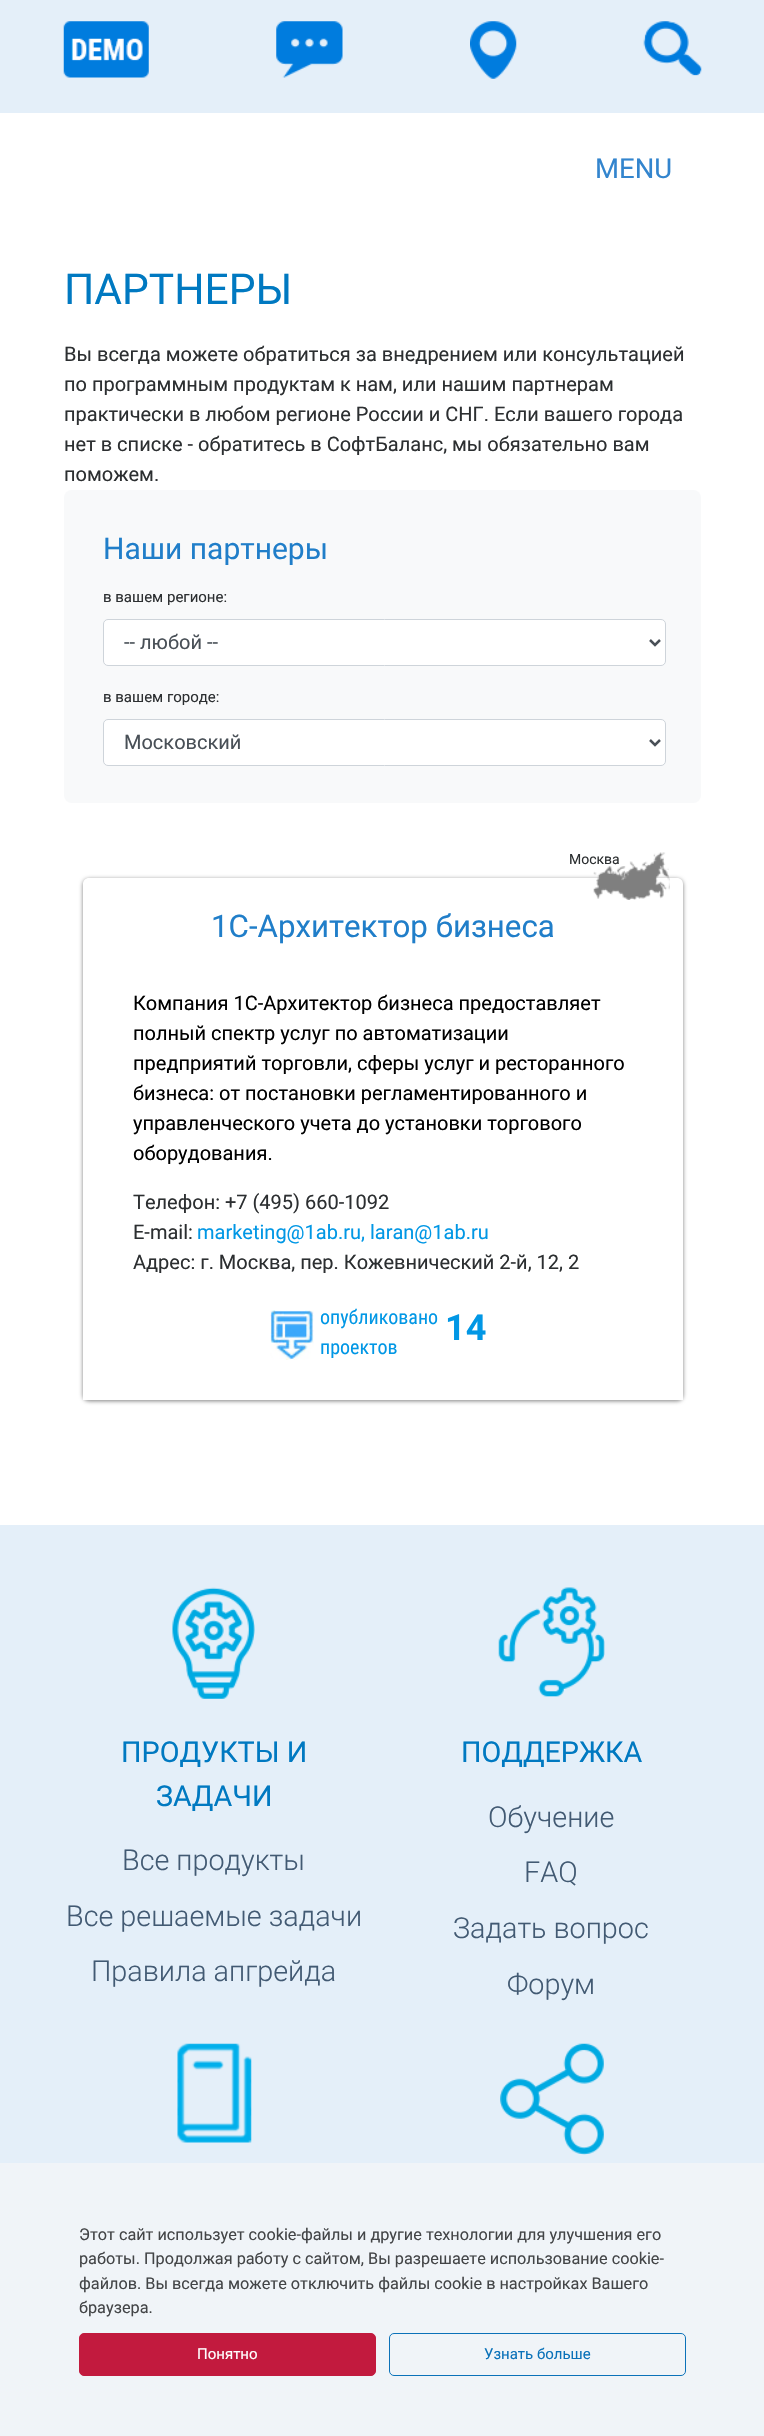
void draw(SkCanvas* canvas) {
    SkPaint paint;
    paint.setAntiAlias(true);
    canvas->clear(0xFFFFFFFF);
    paint.setColor(0xFFE4EFF9);
    canvas->drawRect(SkRect::MakeXYWH(0, 0, 764, 113), paint);
    canvas->drawImageRect(SkImages::DeferredFromEncodedData(SkData::MakeFromFileName("img1.png")), SkRect::MakeXYWH(63, 21, 86, 57), SkSamplingOptions());
    canvas->drawImageRect(SkImages::DeferredFromEncodedData(SkData::MakeFromFileName("img2.png")), SkRect::MakeXYWH(276, 21, 67, 57), SkSamplingOptions());
    canvas->drawImageRect(SkImages::DeferredFromEncodedData(SkData::MakeFromFileName("img3.png")), SkRect::MakeXYWH(470, 21, 47, 58), SkSamplingOptions());
    canvas->drawImageRect(SkImages::DeferredFromEncodedData(SkData::MakeFromFileName("img4.png")), SkRect::MakeXYWH(643, 21, 59, 55), SkSamplingOptions());
    SkFont font1(fontMgr->matchFamilyStyle("Roboto", SkFontStyle::Normal()), 27.5f);
    font1.setSubpixel(true);
    paint.setColor(0xFF3385CE);
    canvas->drawString("MENU", 595, 178, font1, paint);
    SkFont font2(fontMgr->matchFamilyStyle("Roboto", SkFontStyle::Normal()), 42.5f);
    font2.setSubpixel(true);
    paint.setColor(0xFF0079C1);
    canvas->drawString("ПАРТНЕРЫ", 64, 304, font2, paint);
    SkFont font3(fontMgr->matchFamilyStyle("Roboto", SkFontStyle::Normal()), 20);
    font3.setSubpixel(true);
    paint.setColor(0xFF2C2F31);
    canvas->drawString("Вы всегда можете обратиться за внедрением или консультацией", 64, 361, font3, paint);
    canvas->drawString("по программным продуктам к нам, или нашим партнерам", 64, 391, font3, paint);
    canvas->drawString("практически в любом регионе России и СНГ. Если вашего города", 64, 421, font3, paint);
    canvas->drawString("нет в списке - обратитесь в СофтБаланс, мы обязательно вам", 64, 451, font3, paint);
    canvas->drawString("поможем.", 64, 481, font3, paint);
    paint.setColor(0xFFF8F9FA);
    canvas->drawRoundRect(SkRect::MakeXYWH(64, 490, 637, 313), 8, 8, paint);
    SkFont font4(fontMgr->matchFamilyStyle("Roboto", SkFontStyle::Normal()), 30);
    font4.setSubpixel(true);
    paint.setColor(0xFF207EC9);
    canvas->drawString("Наши партнеры", 103, 559, font4, paint);
    SkFont font5(fontMgr->matchFamilyStyle("Roboto", SkFontStyle::Normal()), 15);
    font5.setSubpixel(true);
    paint.setColor(0xFF2C2F31);
    canvas->drawString("в вашем регионе:", 103, 602, font5, paint);
    paint.setColor(0xFFFFFFFF);
    canvas->drawRoundRect(SkRect::MakeXYWH(103.5f, 619.5f, 562, 46), 4.5f, 4.5f, paint);
    paint.setStyle(SkPaint::kStroke_Style);
    paint.setStrokeWidth(1);
    paint.setColor(0xFFCED4DA);
    canvas->drawRoundRect(SkRect::MakeXYWH(103.5f, 619.5f, 562, 46), 4.5f, 4.5f, paint);
    paint.setStrokeWidth(2.5f);
    paint.setColor(0xFF495057);
    canvas->drawPath(SkPathBuilder().moveTo(650, 640).lineTo(655, 645).lineTo(660, 640).detach(), paint);
    paint.setStyle(SkPaint::kFill_Style);
    canvas->drawString("-- любой --", 124, 649, font3, paint);
    paint.setColor(0xFF2C2F31);
    canvas->drawString("в вашем городе:", 103, 702, font5, paint);
    paint.setColor(0xFFFFFFFF);
    canvas->drawRoundRect(SkRect::MakeXYWH(103.5f, 719.5f, 562, 46), 4.5f, 4.5f, paint);
    paint.setStyle(SkPaint::kStroke_Style);
    paint.setStrokeWidth(1);
    paint.setColor(0xFFCED4DA);
    canvas->drawRoundRect(SkRect::MakeXYWH(103.5f, 719.5f, 562, 46), 4.5f, 4.5f, paint);
    paint.setStrokeWidth(2.5f);
    paint.setColor(0xFF495057);
    canvas->drawPath(SkPathBuilder().moveTo(650, 740).lineTo(655, 745).lineTo(660, 740).detach(), paint);
    paint.setStyle(SkPaint::kFill_Style);
    canvas->drawString("Московский", 124, 749, font3, paint);
    canvas->save();
    canvas->clipPath(SkPathBuilder(SkPathFillType::kEvenOdd).moveTo(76, 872).lineTo(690, 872).lineTo(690, 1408).lineTo(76, 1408).close().moveTo(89, 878).lineTo(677, 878).cubicTo(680.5f, 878, 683, 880.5f, 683, 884).lineTo(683, 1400).lineTo(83, 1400).lineTo(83, 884).cubicTo(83, 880.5f, 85.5f, 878, 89, 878).close().detach(), true);
    paint.setColor(0x80000000);
    paint.setMaskFilter(SkMaskFilter::MakeBlur(kNormal_SkBlurStyle, 2));
    canvas->drawRoundRect(SkRect::MakeXYWH(83, 879, 600, 522), 6, 6, paint);
    paint.setMaskFilter(nullptr);
    canvas->restore();
    canvas->drawImageRect(SkImages::DeferredFromEncodedData(SkData::MakeFromFileName("img5.png")), SkRect::MakeXYWH(593, 852, 77, 48), SkSamplingOptions());
    SkFont font6(fontMgr->matchFamilyStyle("Roboto", SkFontStyle::Normal()), 14);
    font6.setSubpixel(true);
    paint.setColor(0xFF2C2F31);
    canvas->drawString("Москва", 569, 864, font6, paint);
    SkFont font7(fontMgr->matchFamilyStyle("Roboto", SkFontStyle::Normal()), 31.25f);
    font7.setSubpixel(true);
    paint.setColor(0xFF207EC9);
    canvas->drawString("1С-Архитектор бизнеса", 211, 937, font7, paint);
    paint.setColor(0xFF000000);
    canvas->drawString("Компания 1С-Архитектор бизнеса предоставляет", 133, 1010, font3, paint);
    canvas->drawString("полный спектр услуг по автоматизации", 133, 1040, font3, paint);
    canvas->drawString("предприятий торговли, сферы услуг и ресторанного", 133, 1070, font3, paint);
    canvas->drawString("бизнеса: от постановки регламентированного и", 133, 1100, font3, paint);
    canvas->drawString("управленческого учета до установки торгового", 133, 1130, font3, paint);
    canvas->drawString("оборудования.", 133, 1160, font3, paint);
    paint.setColor(0xFF2C2F31);
    canvas->drawString("Телефон: +7 (495) 660-1092", 133, 1209, font3, paint);
    canvas->drawString("E-mail:", 133, 1239, font3, paint);
    paint.setColor(0xFF0197E5);
    canvas->drawString("marketing@1ab.ru, laran@1ab.ru", 197, 1239, font3, paint);
    paint.setColor(0xFF2C2F31);
    canvas->drawString("Адрес: г. Москва, пер. Кожевнический 2-й, 12, 2", 133, 1269, font3, paint);
    canvas->drawImageRect(SkImages::DeferredFromEncodedData(SkData::MakeFromFileName("img6.png")), SkRect::MakeXYWH(270, 1310, 44, 50), SkSamplingOptions());
    SkFont font8(fontMgr->matchFamilyStyle("Roboto Condensed", SkFontStyle::Normal()), 20);
    font8.setSubpixel(true);
    paint.setColor(0xFF0197E5);
    canvas->drawString("опубликовано", 320, 1324, font8, paint);
    canvas->drawString("проектов", 320, 1354, font8, paint);
    SkFont font9(fontMgr->matchFamilyStyle("Roboto", SkFontStyle::Bold()), 36);
    font9.setSubpixel(true);
    canvas->drawString("14", 445, 1340, font9, paint);
    paint.setColor(0xFFE4EFF9);
    canvas->drawRect(SkRect::MakeXYWH(0, 1525, 764, 638), paint);
    canvas->drawImageRect(SkImages::DeferredFromEncodedData(SkData::MakeFromFileName("img7.png")), SkRect::MakeXYWH(172, 1587, 83, 112), SkSamplingOptions());
    SkFont font10(fontMgr->matchFamilyStyle("Roboto", SkFontStyle::Normal()), 28.75f);
    font10.setSubpixel(true);
    paint.setColor(0xFF0079C1);
    canvas->drawString("ПРОДУКТЫ И", 121, 1762, font10, paint);
    canvas->drawString("ЗАДАЧИ", 156, 1806, font10, paint);
    SkFont font11(fontMgr->matchFamilyStyle("Roboto", SkFontStyle(300, SkFontStyle::kNormal_Width, SkFontStyle::kUpright_Slant)), 28.75f);
    font11.setSubpixel(true);
    paint.setColor(0xFF425A73);
    canvas->drawString("Все продукты", 122, 1870, font11, paint);
    canvas->drawString("Все решаемые задачи", 66, 1926, font11, paint);
    canvas->drawString("Правила апгрейда", 91, 1981, font11, paint);
    canvas->drawImageRect(SkImages::DeferredFromEncodedData(SkData::MakeFromFileName("img8.png")), SkRect::MakeXYWH(498, 1587, 107, 110), SkSamplingOptions());
    paint.setColor(0xFF0079C1);
    canvas->drawString("ПОДДЕРЖКА", 461, 1762, font10, paint);
    paint.setColor(0xFF425A73);
    canvas->drawString("Обучение", 488, 1827, font11, paint);
    canvas->drawString("FAQ", 524, 1882, font11, paint);
    canvas->drawString("Задать вопрос", 453, 1938, font11, paint);
    canvas->drawString("Форум", 507, 1994, font11, paint);
    canvas->drawImageRect(SkImages::DeferredFromEncodedData(SkData::MakeFromFileName("img9.png")), SkRect::MakeXYWH(177, 2043, 75, 100), SkSamplingOptions());
    canvas->drawImageRect(SkImages::DeferredFromEncodedData(SkData::MakeFromFileName("img10.png")), SkRect::MakeXYWH(500, 2043, 104, 112), SkSamplingOptions());
    paint.setColor(0xFFF0F4F8);
    canvas->drawRect(SkRect::MakeXYWH(0, 2163, 764, 273), paint);
    SkFont font12(fontMgr->matchFamilyStyle("Roboto", SkFontStyle::Normal()), 16.25f);
    font12.setSubpixel(true);
    paint.setColor(0xFF434547);
    canvas->drawString("Этот сайт использует cookie-файлы и другие технологии для улучшения его", 79, 2240, font12, paint);
    canvas->drawString("работы. Продолжая работу с сайтом, Вы разрешаете использование cookie-", 79, 2264, font12, paint);
    canvas->drawString("файлов. Вы всегда можете отключить файлы cookie в настройках Вашего", 79, 2289, font12, paint);
    canvas->drawString("браузера.", 79, 2313, font12, paint);
    paint.setColor(0xFFC21A3E);
    canvas->drawRoundRect(SkRect::MakeXYWH(79.5f, 2333.5f, 296, 42), 4.5f, 4.5f, paint);
    paint.setStyle(SkPaint::kStroke_Style);
    paint.setStrokeWidth(1);
    canvas->drawRoundRect(SkRect::MakeXYWH(79.5f, 2333.5f, 296, 42), 4.5f, 4.5f, paint);
    paint.setStyle(SkPaint::kFill_Style);
    paint.setColor(0xFFFFFFFF);
    canvas->drawString("Понятно", 197, 2359, font5, paint);
    paint.setStyle(SkPaint::kStroke_Style);
    paint.setColor(0xFF0B72B9);
    canvas->drawRoundRect(SkRect::MakeXYWH(389.5f, 2333.5f, 296, 42), 4.5f, 4.5f, paint);
    paint.setStyle(SkPaint::kFill_Style);
    canvas->drawString("Узнать больше", 484, 2359, font5, paint);
}
